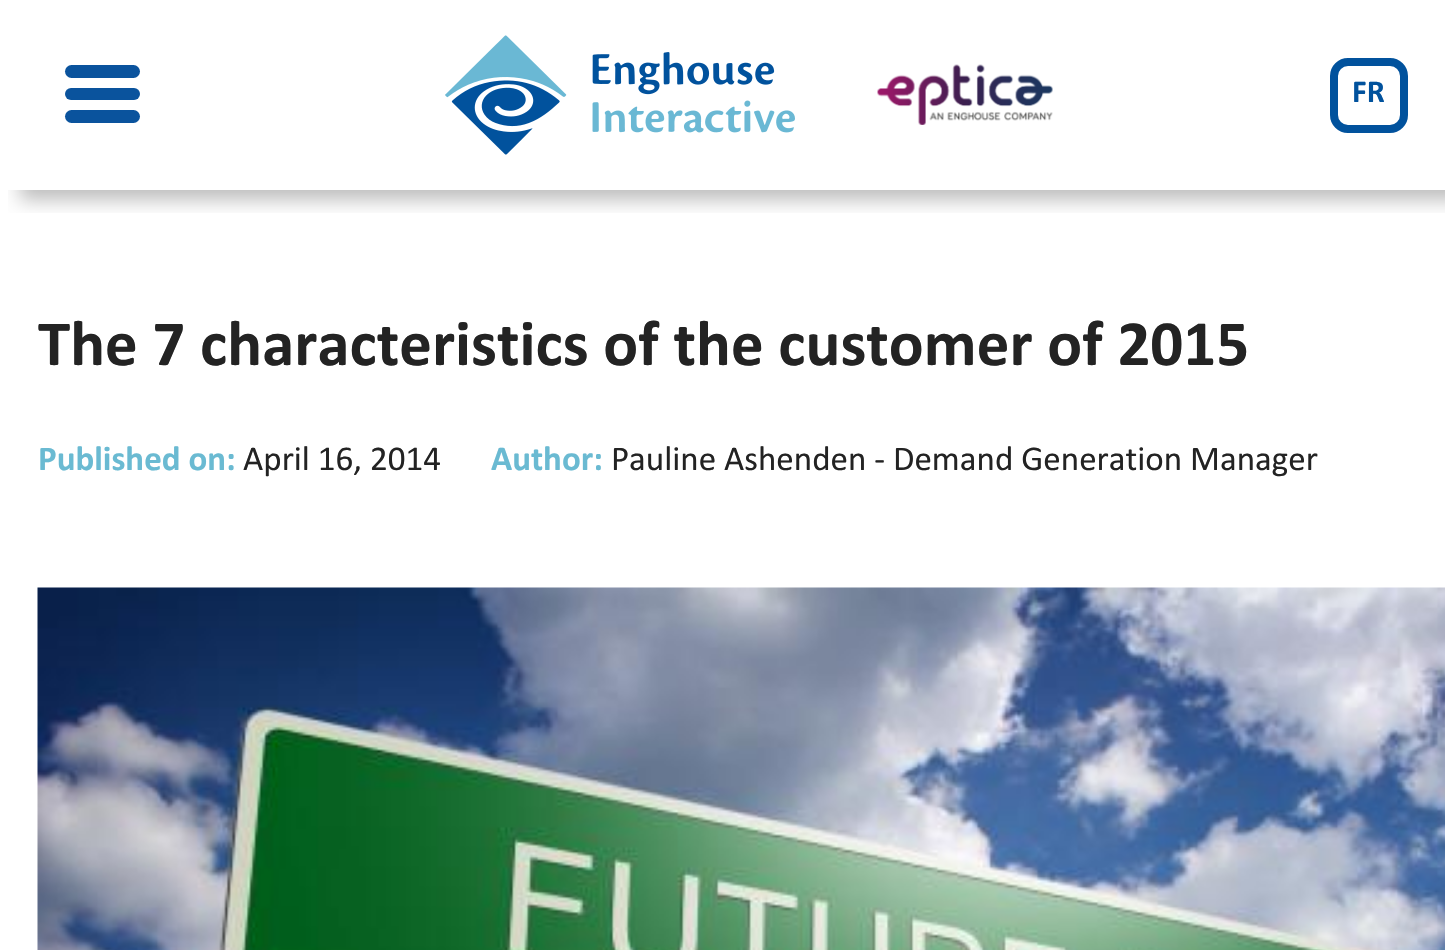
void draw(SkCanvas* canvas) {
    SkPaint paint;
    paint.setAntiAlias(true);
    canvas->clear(0xFFFFFFFF);
    canvas->save();
    canvas->clipRect(SkRect::MakeXYWH(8, 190, 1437, 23));
    paint.setColor(0x42000000);
    paint.setMaskFilter(SkMaskFilter::MakeBlur(kNormal_SkBlurStyle, 9));
    canvas->drawRect(SkRect::MakeXYWH(20, 10, 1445, 190), paint);
    paint.setMaskFilter(nullptr);
    canvas->restore();
    paint.setColor(0xFF0A539D);
    canvas->drawRoundRect(SkRect::MakeXYWH(65, 65, 75, 13), 6.5f, 6.5f, paint);
    canvas->drawRoundRect(SkRect::MakeXYWH(65, 88, 75, 12), 6, 6, paint);
    canvas->drawRoundRect(SkRect::MakeXYWH(65, 110, 75, 13), 6.5f, 6.5f, paint);
    canvas->drawImageRect(SkImages::DeferredFromEncodedData(SkData::MakeFromFileName("img1.png")), SkRect::MakeXYWH(445, 35, 350, 120), SkSamplingOptions());
    canvas->drawImageRect(SkImages::DeferredFromEncodedData(SkData::MakeFromFileName("img2.png")), SkRect::MakeXYWH(877, 64, 176, 61), SkSamplingOptions());
    paint.setStyle(SkPaint::kStroke_Style);
    paint.setStrokeWidth(8);
    paint.setColor(0xFF01529D);
    canvas->drawRoundRect(SkRect::MakeXYWH(1334, 62, 70, 67), 14, 14, paint);
    SkFont font1(fontMgr->matchFamilyStyle("Calibri", SkFontStyle::Bold()), 32);
    font1.setSubpixel(true);
    paint.setStyle(SkPaint::kFill_Style);
    canvas->drawString("FR", 1352, 102, font1, paint);
    SkFont font2(fontMgr->matchFamilyStyle("Calibri", SkFontStyle::Bold()), 65);
    font2.setSubpixel(true);
    paint.setColor(0xFF232323);
    canvas->drawString("The 7 characteristics of the customer of 2015", 38, 365, font2, paint);
    SkFont font3(fontMgr->matchFamilyStyle("Calibri", SkFontStyle::Bold()), 35);
    font3.setSubpixel(true);
    paint.setColor(0xFF6ABAD2);
    canvas->drawString("Published on:", 38, 470, font3, paint);
    SkFont font4(fontMgr->matchFamilyStyle("Calibri", SkFontStyle::Normal()), 35);
    font4.setSubpixel(true);
    paint.setColor(0xFF232323);
    canvas->drawString("April 16, 2014", 243, 470, font4, paint);
    paint.setColor(0xFF6ABAD2);
    canvas->drawString("Author:", 491, 470, font3, paint);
    paint.setColor(0xFF232323);
    canvas->drawString("Pauline Ashenden - Demand Generation Manager", 611, 470, font4, paint);
    canvas->drawImageRect(SkImages::DeferredFromEncodedData(SkData::MakeFromFileName("img3.png")), SkRect::MakeXYWH(37, 587, 1408, 363), SkSamplingOptions());
}
